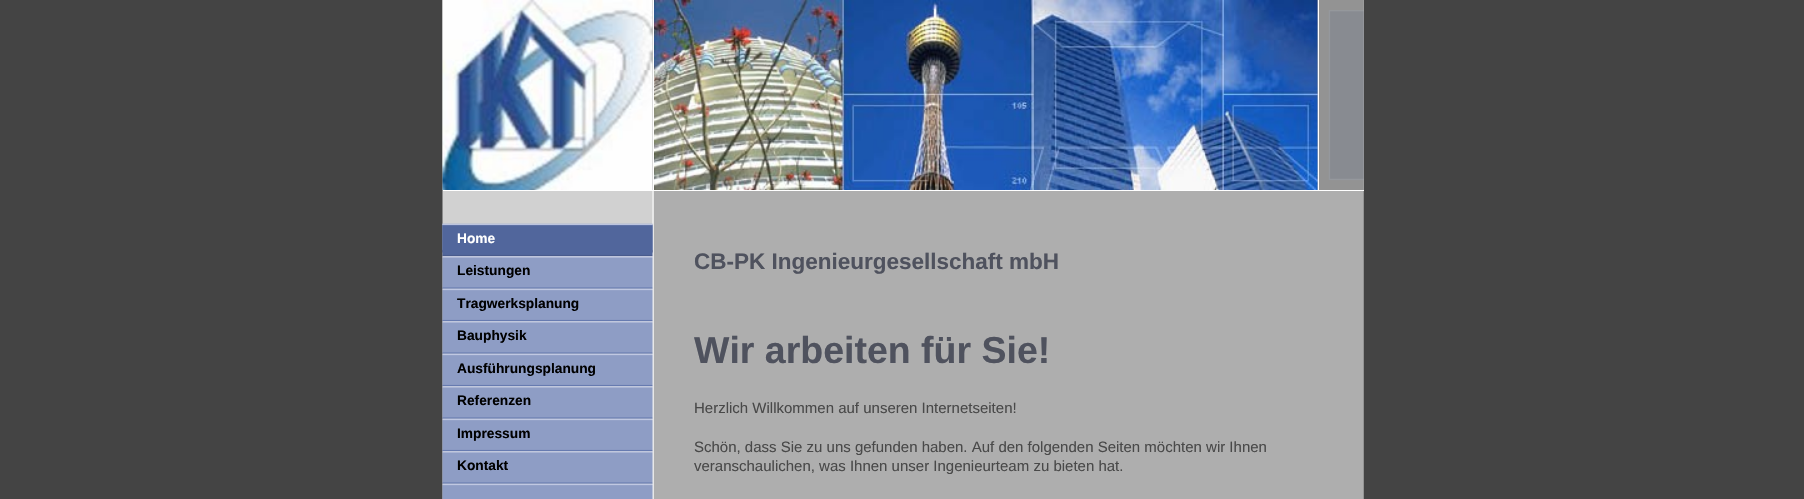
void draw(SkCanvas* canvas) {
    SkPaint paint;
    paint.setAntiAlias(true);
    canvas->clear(0xFF444444);
    canvas->drawImageRect(SkImages::DeferredFromEncodedData(SkData::MakeFromFileName("img1.png")), SkRect::MakeXYWH(442, 0, 922, 499), SkSamplingOptions());
    paint.setColor(0xFFB9B9B9);
    canvas->drawRect(SkRect::MakeXYWH(652, 0, 712, 190), paint);
    canvas->drawImageRect(SkImages::DeferredFromEncodedData(SkData::MakeFromFileName("img2.png")), SkRect::MakeXYWH(1319, 0, 45, 190), SkSamplingOptions());
    paint.setColor(0xFFFFFFFF);
    canvas->drawRect(SkRect::MakeXYWH(443, 190, 921, 1), paint);
    canvas->drawImageRect(SkImages::DeferredFromEncodedData(SkData::MakeFromFileName("img3.png")), SkRect::MakeXYWH(442, 0, 211, 190), SkSamplingOptions());
    canvas->drawImageRect(SkImages::DeferredFromEncodedData(SkData::MakeFromFileName("img4.png")), SkRect::MakeXYWH(654, 0, 664, 190), SkSamplingOptions());
    canvas->drawRect(SkRect::MakeXYWH(1318, 0, 1, 190), paint);
    canvas->drawRect(SkRect::MakeXYWH(653, 0, 1, 190), paint);
    canvas->drawImageRect(SkImages::DeferredFromEncodedData(SkData::MakeFromFileName("img5.png")), SkRect::MakeXYWH(442, 223, 211, 30), SkSamplingOptions());
    canvas->drawImageRect(SkImages::DeferredFromEncodedData(SkData::MakeFromFileName("img6.png")), SkRect::MakeXYWH(442, 223, 211, 34), SkSamplingOptions());
    SkFont font1(fontMgr->matchFamilyStyle("Liberation Sans", SkFontStyle::Bold()), 13.75f);
    font1.setSubpixel(true);
    canvas->drawString("Home", 457, 243, font1, paint);
    canvas->drawImageRect(SkImages::DeferredFromEncodedData(SkData::MakeFromFileName("img7.png")), SkRect::MakeXYWH(442, 256, 211, 33), SkSamplingOptions());
    paint.setColor(0xFF000000);
    canvas->drawString("Leistungen", 457, 275, font1, paint);
    canvas->drawImageRect(SkImages::DeferredFromEncodedData(SkData::MakeFromFileName("img8.png")), SkRect::MakeXYWH(442, 288, 211, 34), SkSamplingOptions());
    canvas->drawString("Tragwerksplanung", 457, 308, font1, paint);
    canvas->drawImageRect(SkImages::DeferredFromEncodedData(SkData::MakeFromFileName("img9.png")), SkRect::MakeXYWH(442, 321, 211, 33), SkSamplingOptions());
    canvas->drawString("Bauphysik", 457, 340, font1, paint);
    canvas->drawImageRect(SkImages::DeferredFromEncodedData(SkData::MakeFromFileName("img8.png")), SkRect::MakeXYWH(442, 353, 211, 34), SkSamplingOptions());
    canvas->drawString("Ausführungsplanung", 457, 373, font1, paint);
    canvas->drawImageRect(SkImages::DeferredFromEncodedData(SkData::MakeFromFileName("img9.png")), SkRect::MakeXYWH(442, 386, 211, 33), SkSamplingOptions());
    canvas->drawString("Referenzen", 457, 405, font1, paint);
    canvas->drawImageRect(SkImages::DeferredFromEncodedData(SkData::MakeFromFileName("img8.png")), SkRect::MakeXYWH(442, 418, 211, 34), SkSamplingOptions());
    canvas->drawString("Impressum", 457, 438, font1, paint);
    canvas->drawImageRect(SkImages::DeferredFromEncodedData(SkData::MakeFromFileName("img9.png")), SkRect::MakeXYWH(442, 451, 211, 33), SkSamplingOptions());
    canvas->drawString("Kontakt", 457, 470, font1, paint);
    canvas->drawImageRect(SkImages::DeferredFromEncodedData(SkData::MakeFromFileName("img10.png")), SkRect::MakeXYWH(442, 483, 211, 16), SkSamplingOptions());
    SkFont font2(fontMgr->matchFamilyStyle("Liberation Sans", SkFontStyle::Bold()), 22.5f);
    font2.setSubpixel(true);
    paint.setColor(0xFF4F525E);
    canvas->drawString("CB-PK Ingenieurgesellschaft mbH", 694, 269, font2, paint);
    SkFont font3(fontMgr->matchFamilyStyle("Liberation Sans", SkFontStyle::Bold()), 37.5f);
    font3.setSubpixel(true);
    canvas->drawString("Wir arbeiten für Sie!", 694, 363, font3, paint);
    SkFont font4(fontMgr->matchFamilyStyle("Liberation Sans", SkFontStyle::Normal()), 15);
    font4.setSubpixel(true);
    paint.setColor(0xFF494949);
    canvas->drawString("Herzlich Willkommen auf unseren Internetseiten!", 694, 413, font4, paint);
    canvas->drawString("Schön, dass Sie zu uns gefunden haben. Auf den folgenden Seiten möchten wir Ihnen", 694, 452, font4, paint);
    canvas->drawString("veranschaulichen, was Ihnen unser Ingenieurteam zu bieten hat.", 694, 471, font4, paint);
}
